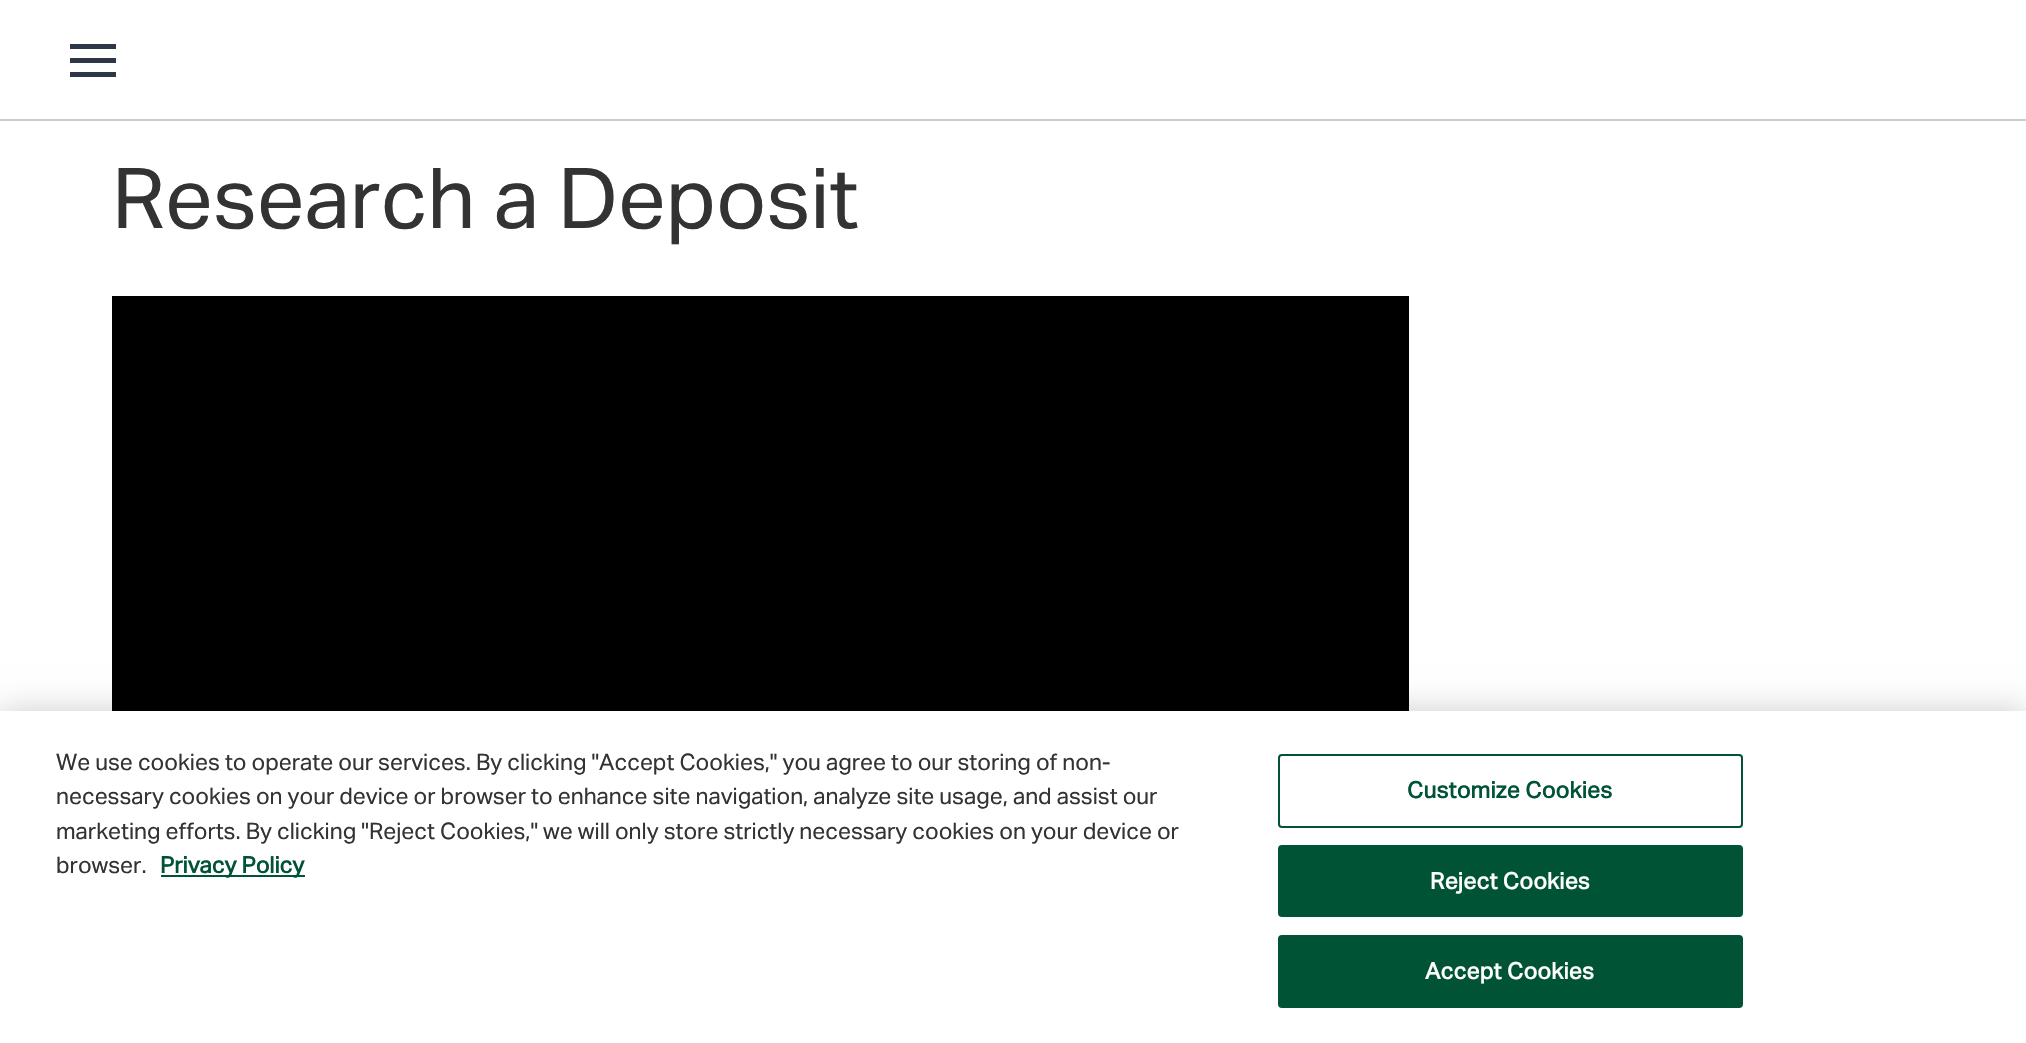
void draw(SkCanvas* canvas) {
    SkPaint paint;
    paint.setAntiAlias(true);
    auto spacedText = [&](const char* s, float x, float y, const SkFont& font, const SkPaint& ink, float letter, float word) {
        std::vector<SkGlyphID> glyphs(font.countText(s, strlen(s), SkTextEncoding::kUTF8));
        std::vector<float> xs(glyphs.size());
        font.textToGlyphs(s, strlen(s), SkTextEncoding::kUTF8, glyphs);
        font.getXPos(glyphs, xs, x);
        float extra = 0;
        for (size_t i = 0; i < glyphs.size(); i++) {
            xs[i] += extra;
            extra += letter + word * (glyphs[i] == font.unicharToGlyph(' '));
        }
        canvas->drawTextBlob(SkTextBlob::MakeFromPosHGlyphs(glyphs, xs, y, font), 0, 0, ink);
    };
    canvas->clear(0xFFFFFFFF);
    paint.setColor(0xFFCCCCCC);
    canvas->drawRect(SkRect::MakeXYWH(0, 119, 2026, 2), paint);
    paint.setColor(0xFF2D3748);
    canvas->drawRect(SkRect::MakeXYWH(70, 44, 46, 5), paint);
    canvas->drawRect(SkRect::MakeXYWH(70, 58, 46, 5), paint);
    canvas->drawRect(SkRect::MakeXYWH(70, 72, 46, 5), paint);
    SkFont font1(fontMgr->matchFamilyStyle("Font", SkFontStyle::Normal()), 84);
    font1.setSubpixel(true);
    paint.setColor(0xFF333333);
    canvas->drawString("Research a Deposit", 112, 228, font1, paint);
    paint.setColor(0xFF000000);
    canvas->drawRect(SkRect::MakeXYWH(112, 296, 1297, 415), paint);
    paint.setColor(0x33000000);
    paint.setMaskFilter(SkMaskFilter::MakeBlur(kNormal_SkBlurStyle, 16));
    canvas->drawRect(SkRect::MakeXYWH(0, 711, 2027, 332), paint);
    paint.setMaskFilter(nullptr);
    paint.setColor(0xFFFFFFFF);
    canvas->drawRect(SkRect::MakeXYWH(0, 711, 2026, 332), paint);
    SkFont font2(fontMgr->matchFamilyStyle("Font", SkFontStyle::Normal()), 22.75f);
    font2.setSubpixel(true);
    paint.setColor(0xFF333333);
    canvas->drawString("We use cookies to operate our services. By clicking \"Accept Cookies,\" you agree to our storing of non-", 56, 770, font2, paint);
    canvas->drawString("necessary cookies on your device or browser to enhance site navigation, analyze site usage, and assist our", 56, 804, font2, paint);
    canvas->drawString("marketing efforts. By clicking \"Reject Cookies,\" we will only store strictly necessary cookies on your device or", 56, 839, font2, paint);
    canvas->drawString("browser.", 56, 873, font2, paint);
    paint.setColor(0xFF005334);
    canvas->drawRect(SkRect::MakeXYWH(161, 875, 144, 2), paint);
    SkFont font3(fontMgr->matchFamilyStyle("Font", SkFontStyle::Bold()), 22.75f);
    font3.setSubpixel(true);
    canvas->drawString("Privacy Policy", 160, 873, font3, paint);
    paint.setStyle(SkPaint::kStroke_Style);
    paint.setStrokeWidth(2);
    canvas->drawRoundRect(SkRect::MakeXYWH(1279, 755, 463, 72), 3, 3, paint);
    paint.setStyle(SkPaint::kFill_Style);
    spacedText("Customize Cookies", 1407, 798, font3, paint, 0.25f, 0);
    canvas->drawRoundRect(SkRect::MakeXYWH(1279, 846, 463, 70), 3, 3, paint);
    paint.setStyle(SkPaint::kStroke_Style);
    canvas->drawRoundRect(SkRect::MakeXYWH(1279, 846, 463, 70), 3, 3, paint);
    paint.setStyle(SkPaint::kFill_Style);
    paint.setColor(0xFFFFFFFF);
    spacedText("Reject Cookies", 1430, 889, font3, paint, 0.25f, 0);
    paint.setColor(0xFF005334);
    canvas->drawRoundRect(SkRect::MakeXYWH(1279, 936, 463, 71), 3, 3, paint);
    paint.setStyle(SkPaint::kStroke_Style);
    canvas->drawRoundRect(SkRect::MakeXYWH(1279, 936, 463, 71), 3, 3, paint);
    paint.setStyle(SkPaint::kFill_Style);
    paint.setColor(0xFFFFFFFF);
    spacedText("Accept Cookies", 1425, 979, font3, paint, 0.25f, 0);
}
